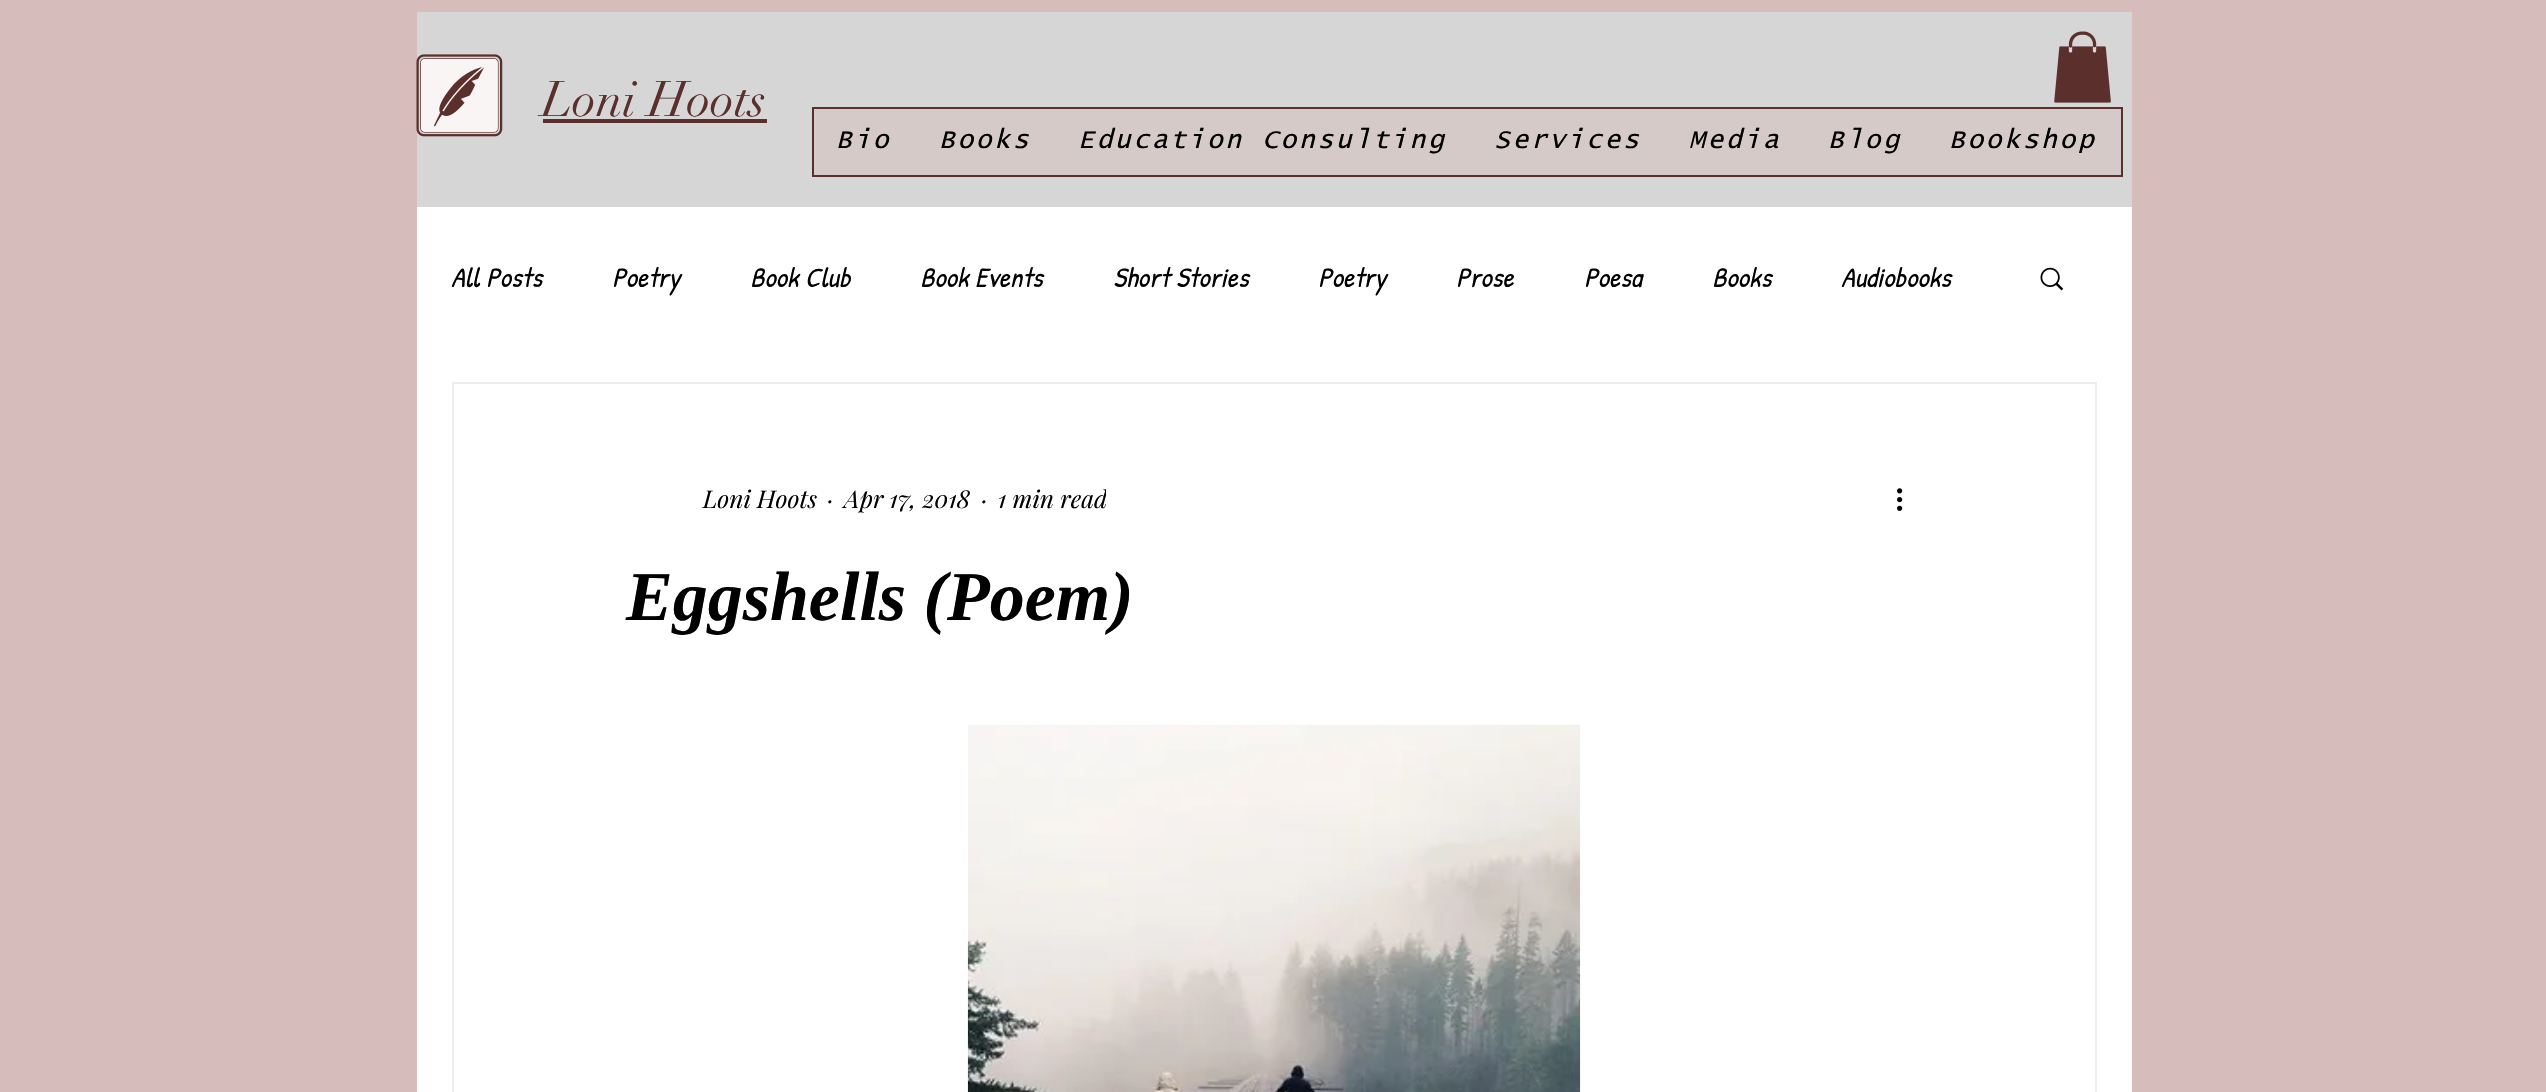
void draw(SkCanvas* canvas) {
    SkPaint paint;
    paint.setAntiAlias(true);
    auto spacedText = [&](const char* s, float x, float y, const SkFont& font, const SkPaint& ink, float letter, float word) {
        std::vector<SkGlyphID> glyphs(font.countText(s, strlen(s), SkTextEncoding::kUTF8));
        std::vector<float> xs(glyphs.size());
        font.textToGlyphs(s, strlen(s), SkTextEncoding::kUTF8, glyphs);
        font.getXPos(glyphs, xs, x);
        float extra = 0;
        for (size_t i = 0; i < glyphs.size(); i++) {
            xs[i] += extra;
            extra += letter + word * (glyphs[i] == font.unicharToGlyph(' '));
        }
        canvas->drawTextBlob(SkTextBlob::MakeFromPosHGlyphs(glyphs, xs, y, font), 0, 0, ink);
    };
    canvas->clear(0xFFD6BCBA);
    paint.setColor(0xFFD6D6D6);
    canvas->drawRect(SkRect::MakeXYWH(417, 12, 1715, 195), paint);
    canvas->drawImageRect(SkImages::DeferredFromEncodedData(SkData::MakeFromFileName("img1.png")), SkRect::MakeXYWH(416, 54, 87, 83), SkSamplingOptions());
    SkFont font1(fontMgr->matchFamilyStyle("didot", SkFontStyle::Normal()), 49);
    font1.setSubpixel(true);
    paint.setColor(0xFF5B2F2C);
    canvas->drawString("Loni Hoots", 542, 116, font1, paint);
    canvas->drawRect(SkRect::MakeXYWH(543, 119, 224, 4), paint);
    canvas->drawImageRect(SkImages::DeferredFromEncodedData(SkData::MakeFromFileName("img2.png")), SkRect::MakeXYWH(2054, 31, 57, 72), SkSamplingOptions());
    paint.setColor(0xFFD6CAC9);
    canvas->drawRect(SkRect::MakeXYWH(813, 108, 1309, 68), paint);
    paint.setStyle(SkPaint::kStroke_Style);
    paint.setStrokeWidth(2);
    paint.setColor(0xFF5B2F2C);
    canvas->drawRect(SkRect::MakeXYWH(813, 108, 1309, 68), paint);
    SkFont font2(fontMgr->matchFamilyStyle("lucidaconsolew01", SkFontStyle::Italic()), 26.25f);
    font2.setSubpixel(true);
    paint.setStyle(SkPaint::kFill_Style);
    paint.setColor(0xFF000000);
    spacedText("Bio", 836, 148, font2, paint, 2.6f, 0);
    spacedText("Books", 939, 148, font2, paint, 2.6f, 0);
    spacedText("Education Consulting", 1078, 148, font2, paint, 2.6f, 0);
    spacedText("Services", 1494, 148, font2, paint, 2.6f, 0);
    spacedText("Media", 1689, 148, font2, paint, 2.6f, 0);
    spacedText("Blog", 1828, 148, font2, paint, 2.6f, 0);
    spacedText("Bookshop", 1949, 148, font2, paint, 2.6f, 0);
    paint.setColor(0xFFFFFFFF);
    canvas->drawRect(SkRect::MakeXYWH(417, 207, 1715, 885), paint);
    SkFont font3(fontMgr->matchFamilyStyle("Patrick Hand", SkFontStyle::Italic()), 28);
    font3.setSubpixel(true);
    paint.setColor(0xFF000000);
    canvas->drawString("All Posts", 451, 287, font3, paint);
    canvas->drawString("Poetry", 612, 287, font3, paint);
    canvas->drawString("Book Club", 750, 287, font3, paint);
    canvas->drawString("Book Events", 920, 287, font3, paint);
    canvas->drawString("Short Stories", 1113, 287, font3, paint);
    canvas->drawString("Poetry", 1318, 287, font3, paint);
    canvas->drawString("Prose", 1456, 287, font3, paint);
    canvas->drawString("Poesa", 1584, 287, font3, paint);
    canvas->drawString("Books", 1712, 287, font3, paint);
    canvas->drawString("Audiobooks", 1841, 287, font3, paint);
    canvas->drawImageRect(SkImages::DeferredFromEncodedData(SkData::MakeFromFileName("img3.png")), SkRect::MakeXYWH(2040, 267, 24, 24), SkSamplingOptions());
    paint.setStyle(SkPaint::kStroke_Style);
    paint.setColor(0xFFEEECEC);
    canvas->drawRect(SkRect::MakeXYWH(453, 383, 1643, 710), paint);
    SkFont font4(fontMgr->matchFamilyStyle("Playfair Display", SkFontStyle::Italic()), 24.5f);
    font4.setSubpixel(true);
    paint.setStyle(SkPaint::kFill_Style);
    paint.setColor(0xFF000000);
    canvas->drawString("Loni Hoots", 703, 508, font4, paint);
    canvas->drawString("·", 827, 508, font4, paint);
    canvas->drawString("Apr 17, 2018", 844, 508, font4, paint);
    canvas->drawString("·", 981, 508, font4, paint);
    canvas->save();
    canvas->clipRect(SkRect::MakeXYWH(970, 480, 136, 36));
    canvas->drawString("1 min read", 998, 508, font4, paint);
    canvas->restore();
    canvas->drawImageRect(SkImages::DeferredFromEncodedData(SkData::MakeFromFileName("img4.png")), SkRect::MakeXYWH(1897, 488, 6, 23), SkSamplingOptions());
    SkFont font5(fontMgr->matchFamilyStyle("Liberation Serif", SkFontStyle::BoldItalic()), 70);
    font5.setSubpixel(true);
    canvas->drawString("Eggshells (Poem)", 626, 620, font5, paint);
    canvas->drawImageRect(SkImages::DeferredFromEncodedData(SkData::MakeFromFileName("img5.png")), SkRect::MakeXYWH(967, 724, 614, 368), SkSamplingOptions());
}
